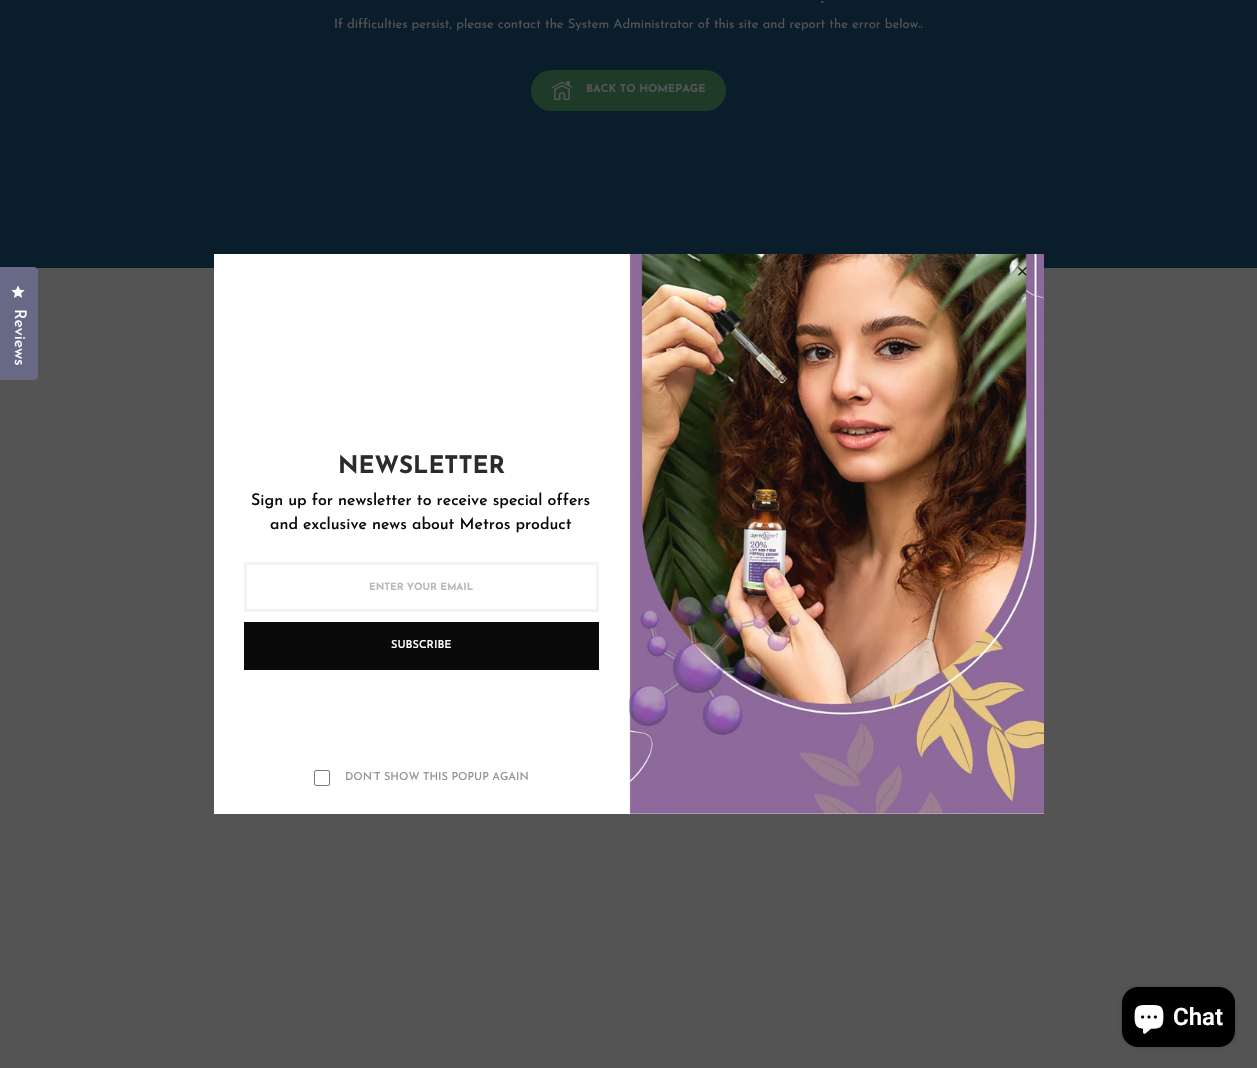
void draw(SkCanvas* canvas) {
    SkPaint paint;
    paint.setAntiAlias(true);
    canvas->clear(0xFF545454);
    paint.setColor(0xFF0A1D2A);
    canvas->drawRect(SkRect::MakeXYWH(0, 0, 1257, 268), paint);
    SkFont font1(fontMgr->matchFamilyStyle("Josefin Sans", SkFontStyle(600, SkFontStyle::kNormal_Width, SkFontStyle::kUpright_Slant)), 16);
    font1.setSubpixel(true);
    paint.setColor(0xFF545454);
    canvas->drawString(".", 821, 3, font1, paint);
    SkFont font2(fontMgr->matchFamilyStyle("Josefin Sans", SkFontStyle::Normal()), 13);
    font2.setSubpixel(true);
    canvas->drawString("If difficulties persist, please contact the System Administrator of this site and report the error below..", 334, 28, font2, paint);
    paint.setColor(0xFF1E3B28);
    canvas->drawRoundRect(SkRect::MakeXYWH(531, 70, 195, 41), 20.5f, 20.5f, paint);
    canvas->drawImageRect(SkImages::DeferredFromEncodedData(SkData::MakeFromFileName("img1.png")), SkRect::MakeXYWH(551, 81, 22, 19), SkSamplingOptions());
    SkFont font3(fontMgr->matchFamilyStyle("Josefin Sans", SkFontStyle::Bold()), 11);
    font3.setSubpixel(true);
    paint.setColor(0xFF545454);
    canvas->drawString("BACK TO HOMEPAGE", 586, 92, font3, paint);
    paint.setColor(0xFF676986);
    canvas->drawPath(SkPathBuilder().moveTo(-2, 267).lineTo(34, 267).cubicTo(36, 267, 38, 269, 38, 271).lineTo(38, 376).cubicTo(38, 378, 36, 380, 34, 380).lineTo(-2, 380).close().detach(), paint);
    canvas->drawImageRect(SkImages::DeferredFromEncodedData(SkData::MakeFromFileName("img2.png")), SkRect::MakeXYWH(11, 285, 14, 13), SkSamplingOptions());
    SkFont font4(fontMgr->matchFamilyStyle("Josefin Sans", SkFontStyle::Normal()), 16);
    font4.setSubpixel(true);
    paint.setColor(0xFFFFFFFF);
    canvas->save();
    canvas->rotate(90.1f, 15, 309);
    canvas->drawString("Reviews", 15, 309, font4, paint);
    canvas->restore();
    canvas->drawRect(SkRect::MakeXYWH(214, 254, 415, 560), paint);
    canvas->drawImageRect(SkImages::DeferredFromEncodedData(SkData::MakeFromFileName("img3.png")), SkRect::MakeXYWH(629, 254, 415, 560), SkSamplingOptions());
    canvas->drawImageRect(SkImages::DeferredFromEncodedData(SkData::MakeFromFileName("img4.png")), SkRect::MakeXYWH(1018, 267, 9, 9), SkSamplingOptions());
    SkFont font5(fontMgr->matchFamilyStyle("Josefin Sans", SkFontStyle::Bold()), 24);
    font5.setSubpixel(true);
    paint.setColor(0xFF2B2B2B);
    canvas->drawString("NEWSLETTER", 338, 473, font5, paint);
    SkFont font6(fontMgr->matchFamilyStyle("Josefin Sans", SkFontStyle(500, SkFontStyle::kNormal_Width, SkFontStyle::kUpright_Slant)), 16);
    font6.setSubpixel(true);
    paint.setColor(0xFF0A0A0A);
    canvas->drawString("Sign up for newsletter to receive special offers", 251, 505, font6, paint);
    canvas->drawString("and exclusive news about Metros product", 270, 529, font6, paint);
    paint.setStyle(SkPaint::kStroke_Style);
    paint.setStrokeWidth(3);
    paint.setColor(0xFFF3F3F3);
    canvas->drawRect(SkRect::MakeXYWH(245.5f, 563.5f, 352, 47), paint);
    SkFont font7(fontMgr->matchFamilyStyle("Josefin Sans", SkFontStyle::Bold()), 10);
    font7.setSubpixel(true);
    paint.setStyle(SkPaint::kFill_Style);
    paint.setColor(0xFFBABABA);
    canvas->drawString("ENTER YOUR EMAIL", 369, 590, font7, paint);
    paint.setColor(0xFF0A0A0A);
    canvas->drawRect(SkRect::MakeXYWH(244, 622, 355, 48), paint);
    SkFont font8(fontMgr->matchFamilyStyle("Josefin Sans", SkFontStyle(600, SkFontStyle::kNormal_Width, SkFontStyle::kUpright_Slant)), 11);
    font8.setSubpixel(true);
    paint.setColor(0xFFFFFFFF);
    canvas->drawString("SUBSCRIBE", 391, 648, font8, paint);
    paint.setStyle(SkPaint::kStroke_Style);
    paint.setStrokeWidth(1);
    paint.setColor(0xFF7B7B7B);
    canvas->drawRoundRect(SkRect::MakeXYWH(314.5f, 770.5f, 15, 15), 1.5f, 1.5f, paint);
    SkFont font9(fontMgr->matchFamilyStyle("Josefin Sans", SkFontStyle(500, SkFontStyle::kNormal_Width, SkFontStyle::kUpright_Slant)), 11);
    font9.setSubpixel(true);
    paint.setStyle(SkPaint::kFill_Style);
    paint.setColor(0xFF949494);
    canvas->drawString("DON’T SHOW THIS POPUP AGAIN", 345, 780, font9, paint);
    paint.setColor(0x26000000);
    paint.setMaskFilter(SkMaskFilter::MakeBlur(kNormal_SkBlurStyle, 2.5f));
    canvas->drawRoundRect(SkRect::MakeXYWH(1122, 987, 113, 60), 16, 16, paint);
    paint.setMaskFilter(nullptr);
    paint.setColor(0xFF000000);
    canvas->drawRoundRect(SkRect::MakeXYWH(1122, 987, 113, 60), 16, 16, paint);
    canvas->drawImageRect(SkImages::DeferredFromEncodedData(SkData::MakeFromFileName("img5.png")), SkRect::MakeXYWH(1134, 1005, 30, 29), SkSamplingOptions());
    SkFont font10(fontMgr->matchFamilyStyle("Roboto", SkFontStyle(600, SkFontStyle::kNormal_Width, SkFontStyle::kUpright_Slant)), 24);
    font10.setSubpixel(true);
    paint.setColor(0xFFFFFFFF);
    canvas->drawString("Chat", 1173, 1025, font10, paint);
}
